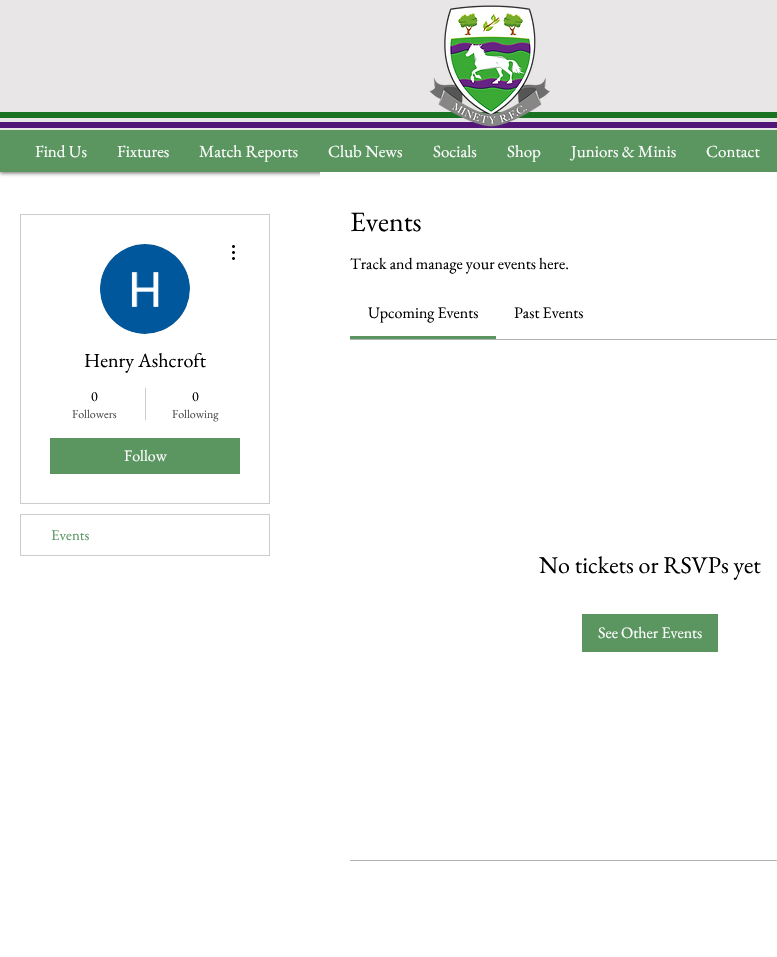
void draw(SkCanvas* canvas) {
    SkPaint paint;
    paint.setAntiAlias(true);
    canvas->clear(0xFFFFFFFF);
    paint.setColor(0x99000000);
    paint.setMaskFilter(SkMaskFilter::MakeBlur(kNormal_SkBlurStyle, 2));
    canvas->drawRect(SkRect::MakeXYWH(0, 1, 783, 172), paint);
    paint.setMaskFilter(nullptr);
    paint.setColor(0xFFE8E6E6);
    canvas->drawRect(SkRect::MakeXYWH(0, 0, 777, 130), paint);
    paint.setColor(0xFF197322);
    canvas->drawRect(SkRect::MakeXYWH(0, 112, 777, 6), paint);
    paint.setColor(0xFF521678);
    canvas->drawRect(SkRect::MakeXYWH(0, 122, 777, 6), paint);
    canvas->drawImageRect(SkImages::DeferredFromEncodedData(SkData::MakeFromFileName("img1.png")), SkRect::MakeXYWH(429, 5, 121, 122), SkSamplingOptions());
    paint.setColor(0xFF5B9661);
    canvas->drawRect(SkRect::MakeXYWH(0, 130, 777, 42), paint);
    SkFont font1(fontMgr->matchFamilyStyle("EB Garamond", SkFontStyle::Normal()), 17);
    font1.setSubpixel(true);
    paint.setColor(0xFFFFFFFF);
    canvas->drawString("Find Us", 35, 157, font1, paint);
    canvas->drawString("Fixtures", 117, 157, font1, paint);
    canvas->drawString("Match Reports", 199, 157, font1, paint);
    canvas->drawString("Club News", 328, 157, font1, paint);
    canvas->drawString("Socials", 433, 157, font1, paint);
    canvas->drawString("Shop", 507, 157, font1, paint);
    canvas->drawString("Juniors & Minis", 571, 157, font1, paint);
    canvas->drawString("Contact", 706, 157, font1, paint);
    paint.setStyle(SkPaint::kStroke_Style);
    paint.setStrokeWidth(1);
    paint.setColor(0xFFCCCCCC);
    canvas->drawRect(SkRect::MakeXYWH(20.5f, 214.5f, 249, 289), paint);
    paint.setStyle(SkPaint::kFill_Style);
    paint.setColor(0xFFD8D8D8);
    canvas->drawCircle(145, 289, 45, paint);
    canvas->drawImageRect(SkImages::DeferredFromEncodedData(SkData::MakeFromFileName("img2.png")), SkRect::MakeXYWH(100, 244, 90, 90), SkSamplingOptions());
    canvas->drawImageRect(SkImages::DeferredFromEncodedData(SkData::MakeFromFileName("img3.png")), SkRect::MakeXYWH(232, 245, 3, 15), SkSamplingOptions());
    SkFont font2(fontMgr->matchFamilyStyle("EB Garamond", SkFontStyle::Normal()), 20);
    font2.setSubpixel(true);
    paint.setColor(0xFF000000);
    canvas->drawString("Henry Ashcroft", 84, 367, font2, paint);
    SkFont font3(fontMgr->matchFamilyStyle("EB Garamond", SkFontStyle::Normal()), 14);
    font3.setSubpixel(true);
    canvas->drawString("0", 91, 401, font3, paint);
    SkFont font4(fontMgr->matchFamilyStyle("EB Garamond", SkFontStyle::Normal()), 12);
    font4.setSubpixel(true);
    paint.setColor(0xFF4D4D4D);
    canvas->drawString("Followers", 72, 418, font4, paint);
    paint.setColor(0xFFCCCCCC);
    canvas->drawRect(SkRect::MakeXYWH(145, 388, 1, 32), paint);
    paint.setColor(0xFF000000);
    canvas->drawString("0", 192, 401, font3, paint);
    paint.setColor(0xFF4D4D4D);
    canvas->drawString("Following", 172, 418, font4, paint);
    paint.setColor(0xFF5B9661);
    canvas->drawRect(SkRect::MakeXYWH(50, 438, 190, 36), paint);
    SkFont font5(fontMgr->matchFamilyStyle("EB Garamond", SkFontStyle::Normal()), 16);
    font5.setSubpixel(true);
    paint.setColor(0xFFFFFFFF);
    canvas->drawString("Follow", 124, 461, font5, paint);
    paint.setStyle(SkPaint::kStroke_Style);
    paint.setColor(0xFFCCCCCC);
    canvas->drawRect(SkRect::MakeXYWH(20.5f, 514.5f, 249, 41), paint);
    SkFont font6(fontMgr->matchFamilyStyle("EB Garamond", SkFontStyle::Normal()), 15);
    font6.setSubpixel(true);
    paint.setStyle(SkPaint::kFill_Style);
    paint.setColor(0xFF5B9661);
    canvas->drawString("Events", 51, 540, font6, paint);
    paint.setColor(0xFFFFFFFF);
    canvas->drawRect(SkRect::MakeXYWH(320, 172, 457, 5), paint);
    SkFont font7(fontMgr->matchFamilyStyle("EB Garamond", SkFontStyle::Normal()), 28);
    font7.setSubpixel(true);
    paint.setColor(0xFF000000);
    canvas->drawString("Events", 350, 231, font7, paint);
    canvas->drawString("Track and manage your events here.", 350, 269, font5, paint);
    paint.setColor(0xFF5B9661);
    canvas->drawRect(SkRect::MakeXYWH(350, 336, 146, 3), paint);
    paint.setColor(0xFF000000);
    canvas->drawString("Upcoming Events", 368, 318, font5, paint);
    canvas->drawString("Past Events", 514, 318, font5, paint);
    paint.setColor(0xFFB3B3B3);
    canvas->drawRect(SkRect::MakeXYWH(350, 339, 427, 1), paint);
    SkFont font8(fontMgr->matchFamilyStyle("EB Garamond", SkFontStyle::Normal()), 24);
    font8.setSubpixel(true);
    paint.setColor(0xFF000000);
    canvas->drawString("No tickets or RSVPs yet", 539, 573, font8, paint);
    paint.setColor(0xFF5B9661);
    canvas->drawRect(SkRect::MakeXYWH(582, 614, 136, 38), paint);
    paint.setColor(0xFFFFFFFF);
    canvas->drawString("See Other Events", 598, 638, font5, paint);
    paint.setColor(0xFFB3B3B3);
    canvas->drawRect(SkRect::MakeXYWH(350, 860, 427, 1), paint);
}
